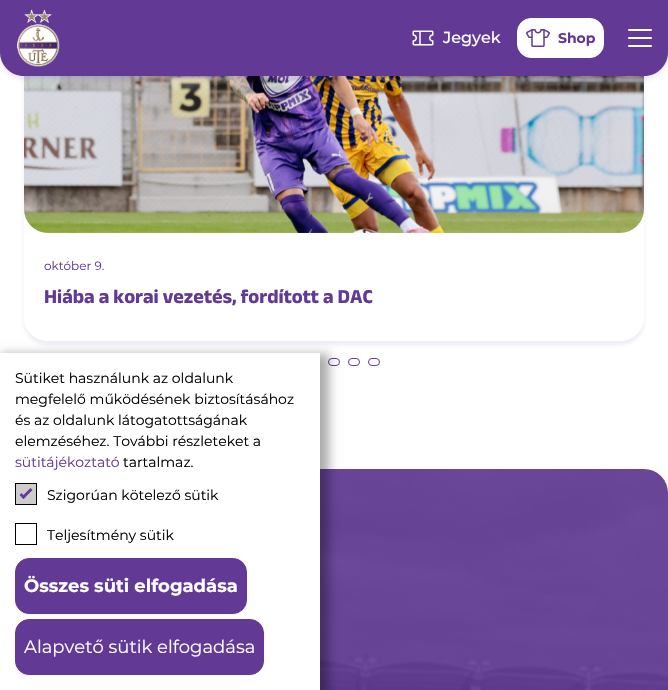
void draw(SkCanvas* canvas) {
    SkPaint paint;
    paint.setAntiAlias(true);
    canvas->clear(0xFFFFFFFF);
    canvas->save();
    canvas->clipPath(SkPathBuilder(SkPathFillType::kEvenOdd).moveTo(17, 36).lineTo(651, 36).lineTo(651, 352).lineTo(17, 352).close().moveTo(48, 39).lineTo(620, 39).cubicTo(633.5f, 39, 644, 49.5f, 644, 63).lineTo(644, 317).cubicTo(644, 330.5f, 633.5f, 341, 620, 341).lineTo(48, 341).cubicTo(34.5f, 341, 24, 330.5f, 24, 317).lineTo(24, 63).cubicTo(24, 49.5f, 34.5f, 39, 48, 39).close().detach(), true);
    paint.setColor(0x1A623A96);
    paint.setMaskFilter(SkMaskFilter::MakeBlur(kNormal_SkBlurStyle, 2));
    canvas->drawRoundRect(SkRect::MakeXYWH(24, 43, 620, 302), 24, 24, paint);
    paint.setMaskFilter(nullptr);
    canvas->restore();
    canvas->drawImageRect(SkImages::DeferredFromEncodedData(SkData::MakeFromFileName("img4.png")), SkRect::MakeXYWH(24, 76, 620, 157), SkSamplingOptions());
    paint.setMaskFilter(SkMaskFilter::MakeBlur(kNormal_SkBlurStyle, 2));
    canvas->drawRoundRect(SkRect::MakeXYWH(0, 4, 668, 76), 24, 24, paint);
    paint.setMaskFilter(nullptr);
    paint.setColor(0xFF623A96);
    canvas->drawPath(SkPathBuilder().moveTo(0, 0).lineTo(668, 0).lineTo(668, 52).cubicTo(668, 65.5f, 657.5f, 76, 644, 76).lineTo(24, 76).cubicTo(10.5f, 76, 0, 65.5f, 0, 52).close().detach(), paint);
    canvas->drawImageRect(SkImages::DeferredFromEncodedData(SkData::MakeFromFileName("img1.png")), SkRect::MakeXYWH(17, 9, 43, 58), SkSamplingOptions());
    canvas->drawImageRect(SkImages::DeferredFromEncodedData(SkData::MakeFromFileName("img2.png")), SkRect::MakeXYWH(412, 30, 22, 16), SkSamplingOptions());
    SkFont font1(fontMgr->matchFamilyStyle("Montserrat", SkFontStyle(500, SkFontStyle::kNormal_Width, SkFontStyle::kUpright_Slant)), 16);
    font1.setSubpixel(true);
    paint.setColor(0xFFFFFFFF);
    canvas->drawString("Jegyek", 443, 43, font1, paint);
    canvas->drawRoundRect(SkRect::MakeXYWH(517.5f, 18.5f, 86, 39), 13.5f, 13.5f, paint);
    paint.setStyle(SkPaint::kStroke_Style);
    paint.setStrokeWidth(1);
    canvas->drawRoundRect(SkRect::MakeXYWH(517.5f, 18.5f, 86, 39), 13.5f, 13.5f, paint);
    canvas->drawImageRect(SkImages::DeferredFromEncodedData(SkData::MakeFromFileName("img3.png")), SkRect::MakeXYWH(526, 29, 24, 18), SkSamplingOptions());
    SkFont font2(fontMgr->matchFamilyStyle("Montserrat", SkFontStyle::Bold()), 14);
    font2.setSubpixel(true);
    paint.setStyle(SkPaint::kFill_Style);
    paint.setColor(0xFF623A96);
    canvas->drawString("Shop", 558, 43, font2, paint);
    paint.setColor(0xFFFFFFFF);
    canvas->drawRoundRect(SkRect::MakeXYWH(628, 29, 24, 2), 1, 1, paint);
    canvas->drawRoundRect(SkRect::MakeXYWH(628, 37, 24, 2), 1, 1, paint);
    canvas->drawRoundRect(SkRect::MakeXYWH(628, 45, 24, 2), 1, 1, paint);
    SkFont font3(fontMgr->matchFamilyStyle("Montserrat", SkFontStyle::Normal()), 12);
    font3.setSubpixel(true);
    paint.setColor(0xFF623A96);
    canvas->drawString("október 9.", 44, 270, font3, paint);
    SkFont font4(fontMgr->matchFamilyStyle("Anek Latin", SkFontStyle::Bold()), 20);
    font4.setSubpixel(true);
    canvas->drawString("Hiába a korai vezetés, fordított a DAC", 44, 303, font4, paint);
    paint.setStyle(SkPaint::kStroke_Style);
    canvas->drawRoundRect(SkRect::MakeXYWH(328.5f, 358.5f, 11, 7), 3.5f, 3.5f, paint);
    canvas->drawRoundRect(SkRect::MakeXYWH(348.5f, 358.5f, 11, 7), 3.5f, 3.5f, paint);
    canvas->drawRoundRect(SkRect::MakeXYWH(368.5f, 358.5f, 11, 7), 3.5f, 3.5f, paint);
    canvas->drawImageRect(SkImages::DeferredFromEncodedData(SkData::MakeFromFileName("img5.png")), SkRect::MakeXYWH(320, 469, 348, 221), SkSamplingOptions());
    paint.setStyle(SkPaint::kFill_Style);
    paint.setColor(0x54000000);
    paint.setMaskFilter(SkMaskFilter::MakeBlur(kNormal_SkBlurStyle, 5));
    canvas->drawRect(SkRect::MakeXYWH(1, 354, 328, 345), paint);
    paint.setMaskFilter(nullptr);
    paint.setColor(0xFFFFFFFF);
    canvas->drawRect(SkRect::MakeXYWH(0, 353, 320, 337), paint);
    SkFont font5(fontMgr->matchFamilyStyle("Montserrat", SkFontStyle::Normal()), 14);
    font5.setSubpixel(true);
    paint.setColor(0xFF000000);
    canvas->drawString("Sütiket használunk az oldalunk", 15, 383, font5, paint);
    canvas->drawString("megfelelő működésének biztosításához", 15, 404, font5, paint);
    canvas->drawString("és az oldalunk látogatottságának", 15, 425, font5, paint);
    canvas->drawString("elemzéséhez. További részleteket a", 15, 446, font5, paint);
    paint.setColor(0xFF623A96);
    canvas->drawString("sütitájékoztató", 15, 467, font5, paint);
    paint.setColor(0xFF000000);
    canvas->drawString("tartalmaz.", 123, 467, font5, paint);
    paint.setColor(0xFFCCCCCC);
    canvas->drawRect(SkRect::MakeXYWH(15.5f, 483.5f, 21, 21), paint);
    paint.setStyle(SkPaint::kStroke_Style);
    paint.setColor(0xFF000000);
    canvas->drawRect(SkRect::MakeXYWH(15.5f, 483.5f, 21, 21), paint);
    paint.setStyle(SkPaint::kFill_Style);
    paint.setColor(0xFF623A96);
    canvas->drawPath(SkPathBuilder().moveTo(30.5f, 488).lineTo(32.5f, 490).lineTo(23.5f, 499).lineTo(21.5f, 497).close().detach(), paint);
    canvas->drawPath(SkPathBuilder().moveTo(21.5f, 493).lineTo(25.5f, 497).lineTo(23.5f, 499).lineTo(19.5f, 495).close().detach(), paint);
    paint.setColor(0xFF000000);
    canvas->drawString("Szigorúan kötelező sütik", 47, 500, font5, paint);
    paint.setStyle(SkPaint::kStroke_Style);
    canvas->drawRect(SkRect::MakeXYWH(15.5f, 523.5f, 21, 21), paint);
    paint.setStyle(SkPaint::kFill_Style);
    canvas->drawString("Teljesítmény sütik", 47, 540, font5, paint);
    paint.setColor(0x0D000000);
    paint.setMaskFilter(SkMaskFilter::MakeBlur(kNormal_SkBlurStyle, 1));
    canvas->drawRoundRect(SkRect::MakeXYWH(15, 559, 232, 56), 14, 14, paint);
    paint.setMaskFilter(nullptr);
    paint.setColor(0xFF623A96);
    canvas->drawRoundRect(SkRect::MakeXYWH(15.5f, 558.5f, 231, 55), 13.5f, 13.5f, paint);
    paint.setStyle(SkPaint::kStroke_Style);
    canvas->drawRoundRect(SkRect::MakeXYWH(15.5f, 558.5f, 231, 55), 13.5f, 13.5f, paint);
    SkFont font6(fontMgr->matchFamilyStyle("Montserrat", SkFontStyle::Bold()), 18);
    font6.setSubpixel(true);
    paint.setStyle(SkPaint::kFill_Style);
    paint.setColor(0xFFFFFFFF);
    canvas->drawString("Összes süti elfogadása", 24, 592, font6, paint);
    paint.setColor(0x0D000000);
    paint.setMaskFilter(SkMaskFilter::MakeBlur(kNormal_SkBlurStyle, 1));
    canvas->drawRoundRect(SkRect::MakeXYWH(15, 620, 249, 56), 14, 14, paint);
    paint.setMaskFilter(nullptr);
    paint.setColor(0xFF623A96);
    canvas->drawRoundRect(SkRect::MakeXYWH(15.5f, 619.5f, 248, 55), 13.5f, 13.5f, paint);
    paint.setStyle(SkPaint::kStroke_Style);
    canvas->drawRoundRect(SkRect::MakeXYWH(15.5f, 619.5f, 248, 55), 13.5f, 13.5f, paint);
    SkFont font7(fontMgr->matchFamilyStyle("Montserrat", SkFontStyle::Normal()), 18);
    font7.setSubpixel(true);
    paint.setStyle(SkPaint::kFill_Style);
    paint.setColor(0xFFFFFFFF);
    canvas->drawString("Alapvető sütik elfogadása", 24, 653, font7, paint);
}
